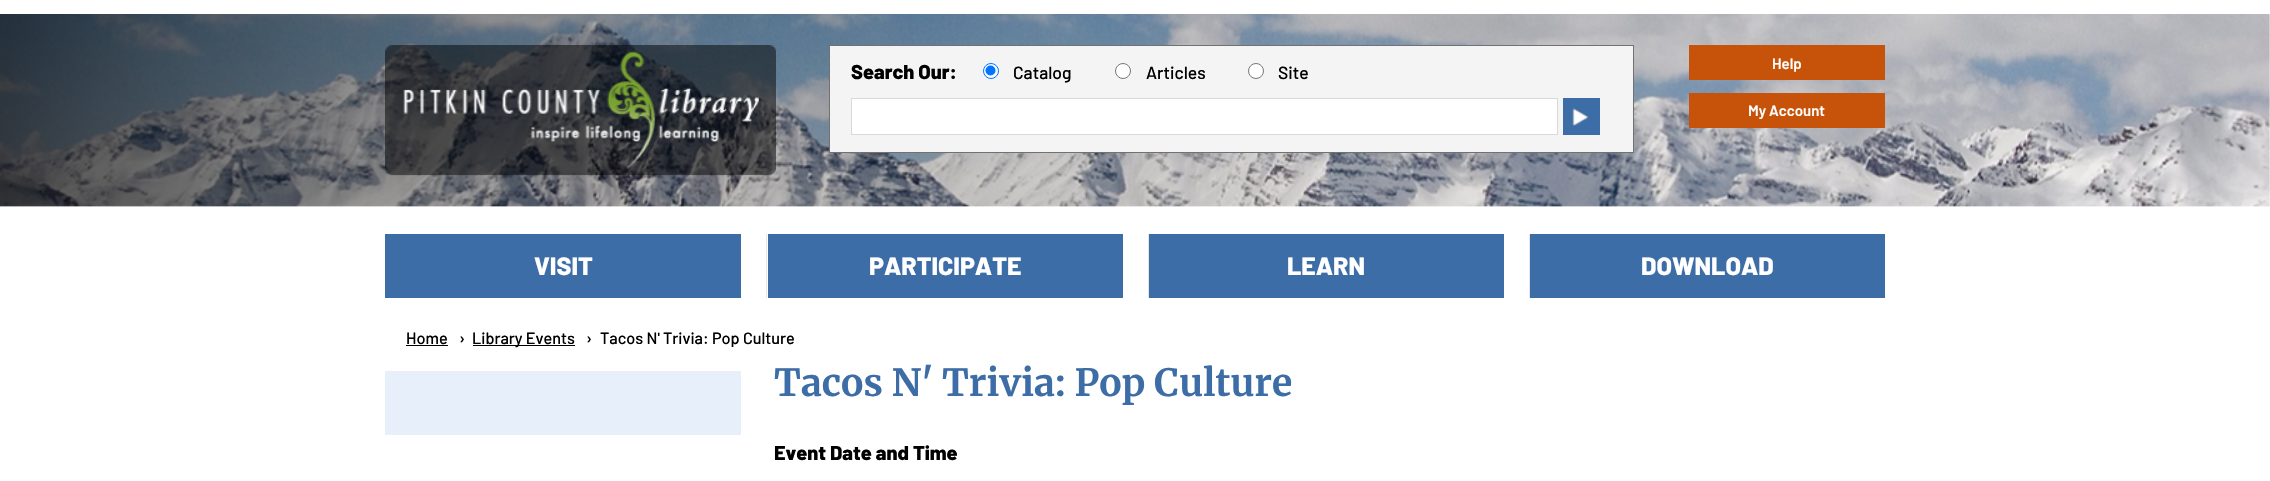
void draw(SkCanvas* canvas) {
    SkPaint paint;
    paint.setAntiAlias(true);
    canvas->clear(0xFFFFFFFF);
    canvas->drawImageRect(SkImages::DeferredFromEncodedData(SkData::MakeFromFileName("img1.png")), SkRect::MakeXYWH(0, 14, 2270, 193), SkSamplingOptions());
    canvas->drawImageRect(SkImages::DeferredFromEncodedData(SkData::MakeFromFileName("img2.png")), SkRect::MakeXYWH(385, 45, 391, 131), SkSamplingOptions());
    paint.setColor(0xFFF4F4F4);
    canvas->drawRect(SkRect::MakeXYWH(829.5f, 45.5f, 804, 107), paint);
    paint.setStyle(SkPaint::kStroke_Style);
    paint.setStrokeWidth(1);
    paint.setColor(0xFF717174);
    canvas->drawRect(SkRect::MakeXYWH(829.5f, 45.5f, 804, 107), paint);
    SkFont font1(fontMgr->matchFamilyStyle("Barlow", SkFontStyle(800, SkFontStyle::kNormal_Width, SkFontStyle::kUpright_Slant)), 20);
    font1.setSubpixel(true);
    paint.setStyle(SkPaint::kFill_Style);
    paint.setColor(0xFF000000);
    canvas->drawString("Search Our:", 851, 79, font1, paint);
    paint.setColor(0xFFFFFFFF);
    canvas->drawCircle(991, 71, 7.5f, paint);
    paint.setStyle(SkPaint::kStroke_Style);
    paint.setColor(0xFF0075FF);
    canvas->drawCircle(991, 71, 7.5f, paint);
    paint.setStyle(SkPaint::kFill_Style);
    canvas->drawCircle(990.5f, 70.5f, 5, paint);
    SkFont font2(fontMgr->matchFamilyStyle("Barlow", SkFontStyle(500, SkFontStyle::kNormal_Width, SkFontStyle::kUpright_Slant)), 17.5f);
    font2.setSubpixel(true);
    paint.setColor(0xFF000000);
    canvas->drawString("Catalog", 1013, 79, font2, paint);
    paint.setColor(0xFFFFFFFF);
    canvas->drawCircle(1123, 71, 7.5f, paint);
    paint.setStyle(SkPaint::kStroke_Style);
    paint.setColor(0xFF767676);
    canvas->drawCircle(1123, 71, 7.5f, paint);
    paint.setStyle(SkPaint::kFill_Style);
    paint.setColor(0xFF000000);
    canvas->drawString("Articles", 1146, 79, font2, paint);
    paint.setColor(0xFFFFFFFF);
    canvas->drawCircle(1256, 71, 7.5f, paint);
    paint.setStyle(SkPaint::kStroke_Style);
    paint.setColor(0xFF767676);
    canvas->drawCircle(1256, 71, 7.5f, paint);
    paint.setStyle(SkPaint::kFill_Style);
    paint.setColor(0xFF000000);
    canvas->drawString("Site", 1278, 79, font2, paint);
    paint.setColor(0xFFFFFFFF);
    canvas->drawRect(SkRect::MakeXYWH(851.5f, 98.5f, 706, 36), paint);
    paint.setStyle(SkPaint::kStroke_Style);
    paint.setColor(0xFFD9D9D9);
    canvas->drawRect(SkRect::MakeXYWH(851.5f, 98.5f, 706, 36), paint);
    paint.setStyle(SkPaint::kFill_Style);
    paint.setColor(0xFF3D6DA6);
    canvas->drawRect(SkRect::MakeXYWH(1563, 98, 37, 37), paint);
    canvas->drawImageRect(SkImages::DeferredFromEncodedData(SkData::MakeFromFileName("img3.png")), SkRect::MakeXYWH(1572, 108, 17, 19), SkSamplingOptions());
    paint.setColor(0xFFC65309);
    canvas->drawRect(SkRect::MakeXYWH(1689, 45, 196, 35), paint);
    SkFont font3(fontMgr->matchFamilyStyle("Barlow", SkFontStyle(600, SkFontStyle::kNormal_Width, SkFontStyle::kUpright_Slant)), 15);
    font3.setSubpixel(true);
    paint.setColor(0xFFFFFFFF);
    canvas->drawString("Help", 1772, 69, font3, paint);
    paint.setColor(0xFFC65309);
    canvas->drawRect(SkRect::MakeXYWH(1689, 93, 196, 35), paint);
    paint.setColor(0xFFFFFFFF);
    canvas->drawString("My Account", 1748, 116, font3, paint);
    paint.setColor(0xFF3D6DA6);
    canvas->drawRect(SkRect::MakeXYWH(385, 234, 356, 64), paint);
    SkFont font4(fontMgr->matchFamilyStyle("Barlow", SkFontStyle(800, SkFontStyle::kNormal_Width, SkFontStyle::kUpright_Slant)), 25);
    font4.setSubpixel(true);
    paint.setColor(0xFFFFFFFF);
    canvas->drawString("VISIT", 534, 275, font4, paint);
    paint.setColor(0xFFE6E6E6);
    canvas->drawRect(SkRect::MakeXYWH(766, 234, 1, 64), paint);
    paint.setColor(0xFF3D6DA6);
    canvas->drawRect(SkRect::MakeXYWH(768, 234, 355, 64), paint);
    paint.setColor(0xFFFFFFFF);
    canvas->drawString("PARTICIPATE", 869, 275, font4, paint);
    paint.setColor(0xFFE6E6E6);
    canvas->drawRect(SkRect::MakeXYWH(1148, 234, 1, 64), paint);
    paint.setColor(0xFF3D6DA6);
    canvas->drawRect(SkRect::MakeXYWH(1149, 234, 355, 64), paint);
    paint.setColor(0xFFFFFFFF);
    canvas->drawString("LEARN", 1287, 275, font4, paint);
    paint.setColor(0xFFE6E6E6);
    canvas->drawRect(SkRect::MakeXYWH(1529, 234, 1, 64), paint);
    paint.setColor(0xFF3D6DA6);
    canvas->drawRect(SkRect::MakeXYWH(1530, 234, 355, 64), paint);
    paint.setColor(0xFFFFFFFF);
    canvas->drawString("DOWNLOAD", 1641, 275, font4, paint);
    SkFont font5(fontMgr->matchFamilyStyle("Barlow", SkFontStyle(500, SkFontStyle::kNormal_Width, SkFontStyle::kUpright_Slant)), 16.25f);
    font5.setSubpixel(true);
    paint.setColor(0xFF000000);
    canvas->drawString("Home", 406, 344, font5, paint);
    canvas->drawRect(SkRect::MakeXYWH(406, 345, 42, 1), paint);
    canvas->drawString("›", 459, 344, font5, paint);
    canvas->drawRect(SkRect::MakeXYWH(473, 345, 102, 1), paint);
    canvas->drawString("Library Events", 472, 344, font5, paint);
    canvas->drawString("›", 586, 344, font5, paint);
    canvas->drawString("Tacos N' Trivia: Pop Culture", 600, 344, font5, paint);
    paint.setColor(0xFFE6EFFA);
    canvas->drawRect(SkRect::MakeXYWH(385, 371, 356, 64), paint);
    SkFont font6(fontMgr->matchFamilyStyle("Merriweather", SkFontStyle(300, SkFontStyle::kNormal_Width, SkFontStyle::kUpright_Slant)), 37.5f);
    font6.setSubpixel(true);
    paint.setColor(0xFF3D6DA6);
    canvas->drawString("Tacos N' Trivia: Pop Culture", 774, 396, font6, paint);
    paint.setColor(0xFF000000);
    canvas->drawString("Event Date and Time", 774, 460, font1, paint);
}
